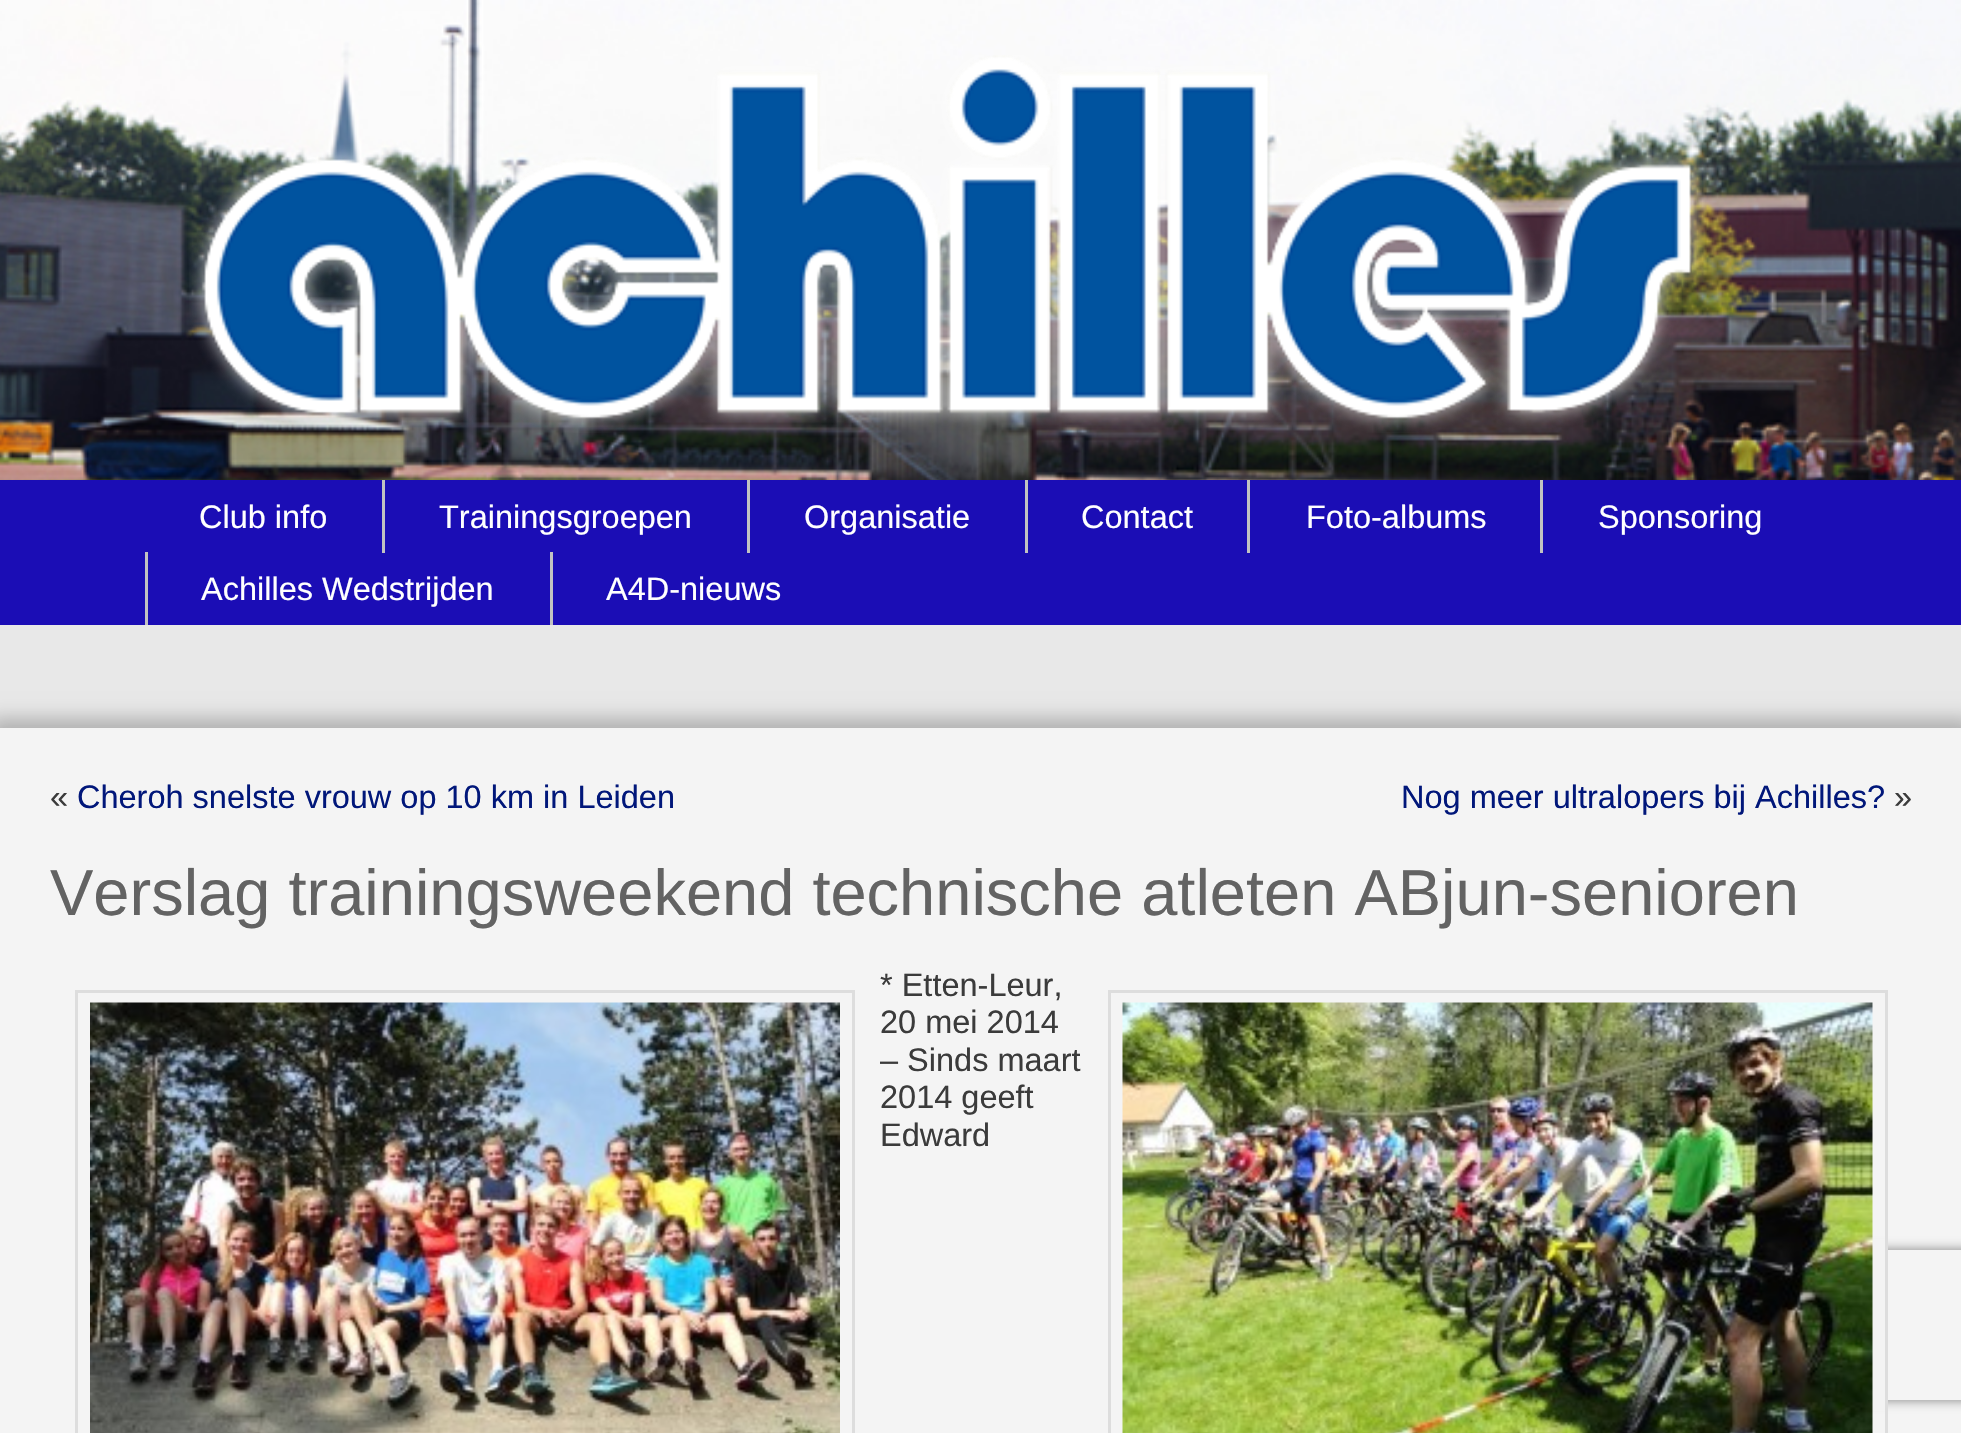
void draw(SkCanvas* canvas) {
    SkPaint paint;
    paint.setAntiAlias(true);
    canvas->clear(0xFFE8E8E8);
    canvas->drawImageRect(SkImages::DeferredFromEncodedData(SkData::MakeFromFileName("img1.png")), SkRect::MakeXYWH(0, 0, 1961, 480), SkSamplingOptions());
    canvas->drawImageRect(SkImages::DeferredFromEncodedData(SkData::MakeFromFileName("img2.png")), SkRect::MakeXYWH(189, 55, 1516, 378), SkSamplingOptions());
    paint.setColor(0xFF1B0DB5);
    canvas->drawRect(SkRect::MakeXYWH(0, 480, 1961, 145), paint);
    SkFont font1(fontMgr->matchFamilyStyle("Liberation Sans", SkFontStyle::Normal()), 32.5f);
    font1.setSubpixel(true);
    paint.setColor(0xFFFFFFFF);
    canvas->drawString("Club info", 199, 528, font1, paint);
    paint.setColor(0xFFC2C2C2);
    canvas->drawRect(SkRect::MakeXYWH(382, 480, 3, 73), paint);
    paint.setColor(0xFFFFFFFF);
    canvas->drawString("Trainingsgroepen", 439, 528, font1, paint);
    paint.setColor(0xFFC2C2C2);
    canvas->drawRect(SkRect::MakeXYWH(747, 480, 3, 73), paint);
    paint.setColor(0xFFFFFFFF);
    canvas->drawString("Organisatie", 804, 528, font1, paint);
    paint.setColor(0xFFC2C2C2);
    canvas->drawRect(SkRect::MakeXYWH(1025, 480, 3, 73), paint);
    paint.setColor(0xFFFFFFFF);
    canvas->drawString("Contact", 1081, 528, font1, paint);
    paint.setColor(0xFFC2C2C2);
    canvas->drawRect(SkRect::MakeXYWH(1247, 480, 3, 73), paint);
    paint.setColor(0xFFFFFFFF);
    canvas->drawString("Foto-albums", 1306, 528, font1, paint);
    paint.setColor(0xFFC2C2C2);
    canvas->drawRect(SkRect::MakeXYWH(1540, 480, 3, 73), paint);
    paint.setColor(0xFFFFFFFF);
    canvas->drawString("Sponsoring", 1598, 528, font1, paint);
    paint.setColor(0xFFC2C2C2);
    canvas->drawRect(SkRect::MakeXYWH(145, 552, 3, 73), paint);
    paint.setColor(0xFFFFFFFF);
    canvas->drawString("Achilles Wedstrijden", 201, 600, font1, paint);
    paint.setColor(0xFFC2C2C2);
    canvas->drawRect(SkRect::MakeXYWH(550, 552, 3, 73), paint);
    paint.setColor(0xFFFFFFFF);
    canvas->drawString("A4D-nieuws", 606, 600, font1, paint);
    paint.setColor(0x3D000000);
    paint.setMaskFilter(SkMaskFilter::MakeBlur(kNormal_SkBlurStyle, 9));
    canvas->drawRect(SkRect::MakeXYWH(-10, 718, 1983, 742), paint);
    paint.setMaskFilter(nullptr);
    paint.setColor(0xFFF4F4F4);
    canvas->drawRect(SkRect::MakeXYWH(0, 728, 1961, 705), paint);
    paint.setColor(0xFF3B3B3B);
    canvas->drawString("«", 50, 808, font1, paint);
    paint.setColor(0xFF01177A);
    canvas->drawString("Cheroh snelste vrouw op 10 km in Leiden", 77, 808, font1, paint);
    canvas->drawString("Nog meer ultralopers bij Achilles?", 1401, 808, font1, paint);
    paint.setColor(0xFF3B3B3B);
    canvas->drawString("»", 1894, 808, font1, paint);
    SkFont font2(fontMgr->matchFamilyStyle("Liberation Sans", SkFontStyle::Normal()), 65);
    font2.setSubpixel(true);
    paint.setColor(0xFF636363);
    canvas->drawString("Verslag trainingsweekend technische atleten ABjun-senioren", 50, 915, font2, paint);
    paint.setStyle(SkPaint::kStroke_Style);
    paint.setStrokeWidth(3);
    paint.setColor(0xFFDDDDDD);
    canvas->drawRect(SkRect::MakeXYWH(76.5f, 991.5f, 777, 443), paint);
    canvas->drawImageRect(SkImages::DeferredFromEncodedData(SkData::MakeFromFileName("img3.png")), SkRect::MakeXYWH(90, 1002, 750, 431), SkSamplingOptions());
    paint.setStyle(SkPaint::kFill_Style);
    paint.setColor(0xFF3B3B3B);
    canvas->drawString("* Etten-Leur,", 880, 996, font1, paint);
    canvas->drawString("20 mei 2014", 880, 1033, font1, paint);
    canvas->drawString("– Sinds maart", 880, 1071, font1, paint);
    canvas->drawString("2014 geeft", 880, 1108, font1, paint);
    canvas->drawString("Edward", 880, 1146, font1, paint);
    canvas->save();
    canvas->clipPath(SkPathBuilder(SkPathFillType::kEvenOdd).moveTo(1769, 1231).lineTo(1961, 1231).lineTo(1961, 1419).lineTo(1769, 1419).close().moveTo(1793, 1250).lineTo(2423, 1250).cubicTo(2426, 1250, 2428, 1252, 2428, 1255).lineTo(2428, 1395).cubicTo(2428, 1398, 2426, 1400, 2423, 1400).lineTo(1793, 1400).cubicTo(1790, 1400, 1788, 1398, 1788, 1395).lineTo(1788, 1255).cubicTo(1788, 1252, 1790, 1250, 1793, 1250).close().detach(), true);
    paint.setColor(0xFF808080);
    paint.setMaskFilter(SkMaskFilter::MakeBlur(kNormal_SkBlurStyle, 6));
    canvas->drawRoundRect(SkRect::MakeXYWH(1788, 1250, 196, 150), 5, 5, paint);
    paint.setMaskFilter(nullptr);
    canvas->restore();
    paint.setColor(0xFFF3F3F3);
    canvas->drawRect(SkRect::MakeXYWH(1777, 1239, 108, 172), paint);
    paint.setStyle(SkPaint::kStroke_Style);
    paint.setColor(0xFFDDDDDD);
    canvas->drawRect(SkRect::MakeXYWH(1109.5f, 991.5f, 777, 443), paint);
    canvas->drawImageRect(SkImages::DeferredFromEncodedData(SkData::MakeFromFileName("img4.png")), SkRect::MakeXYWH(1122, 1002, 751, 431), SkSamplingOptions());
}
